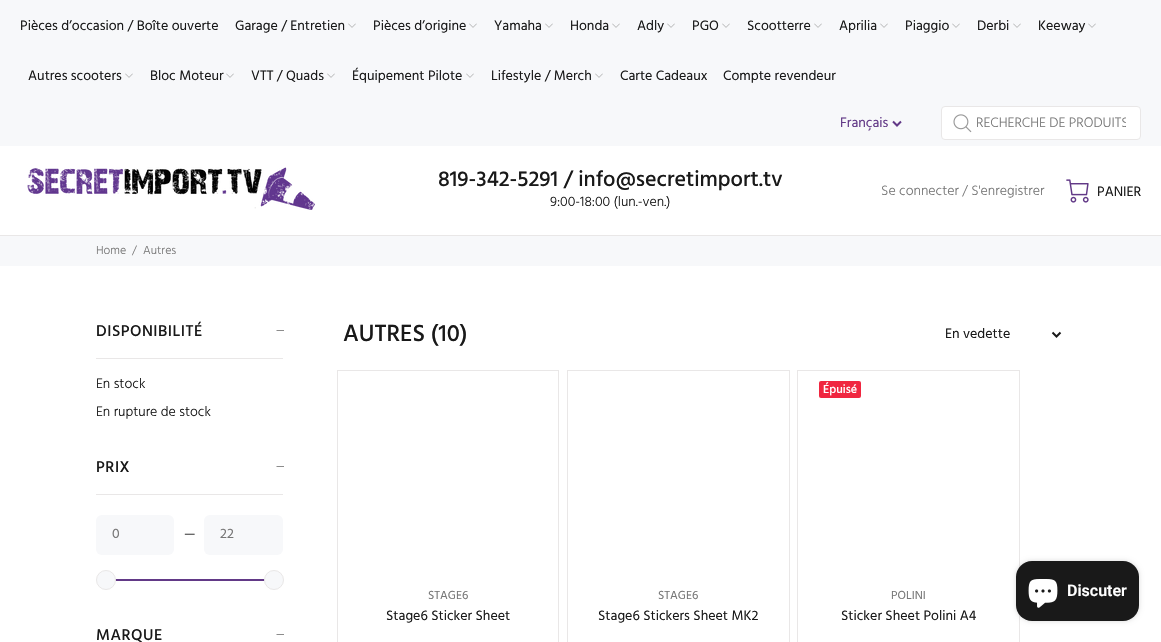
void draw(SkCanvas* canvas) {
    SkPaint paint;
    paint.setAntiAlias(true);
    auto spacedText = [&](const char* s, float x, float y, const SkFont& font, const SkPaint& ink, float letter, float word) {
        std::vector<SkGlyphID> glyphs(font.countText(s, strlen(s), SkTextEncoding::kUTF8));
        std::vector<float> xs(glyphs.size());
        font.textToGlyphs(s, strlen(s), SkTextEncoding::kUTF8, glyphs);
        font.getXPos(glyphs, xs, x);
        float extra = 0;
        for (size_t i = 0; i < glyphs.size(); i++) {
            xs[i] += extra;
            extra += letter + word * (glyphs[i] == font.unicharToGlyph(' '));
        }
        canvas->drawTextBlob(SkTextBlob::MakeFromPosHGlyphs(glyphs, xs, y, font), 0, 0, ink);
    };
    canvas->clear(0xFFFFFFFF);
    paint.setColor(0xFFF7F8FA);
    canvas->drawRect(SkRect::MakeXYWH(0, 0, 1161, 146), paint);
    SkFont font1(fontMgr->matchFamilyStyle("Hind", SkFontStyle::Normal()), 14);
    font1.setSubpixel(true);
    paint.setColor(0xFF191919);
    canvas->drawString("Pièces d’occasion / Boîte ouverte", 20, 30, font1, paint);
    canvas->drawString("Garage / Entretien", 235, 30, font1, paint);
    canvas->drawImageRect(SkImages::DeferredFromEncodedData(SkData::MakeFromFileName("img1.png")), SkRect::MakeXYWH(348, 23, 8, 5), SkSamplingOptions());
    canvas->drawString("Pièces d’origine", 373, 30, font1, paint);
    canvas->drawImageRect(SkImages::DeferredFromEncodedData(SkData::MakeFromFileName("img1.png")), SkRect::MakeXYWH(469, 23, 8, 5), SkSamplingOptions());
    canvas->drawString("Yamaha", 494, 30, font1, paint);
    canvas->drawImageRect(SkImages::DeferredFromEncodedData(SkData::MakeFromFileName("img1.png")), SkRect::MakeXYWH(545, 23, 8, 5), SkSamplingOptions());
    canvas->drawString("Honda", 570, 30, font1, paint);
    canvas->drawImageRect(SkImages::DeferredFromEncodedData(SkData::MakeFromFileName("img1.png")), SkRect::MakeXYWH(612, 23, 8, 5), SkSamplingOptions());
    canvas->drawString("Adly", 637, 30, font1, paint);
    canvas->drawImageRect(SkImages::DeferredFromEncodedData(SkData::MakeFromFileName("img1.png")), SkRect::MakeXYWH(667, 23, 8, 5), SkSamplingOptions());
    canvas->drawString("PGO", 692, 30, font1, paint);
    canvas->drawImageRect(SkImages::DeferredFromEncodedData(SkData::MakeFromFileName("img1.png")), SkRect::MakeXYWH(722, 23, 8, 5), SkSamplingOptions());
    canvas->drawString("Scootterre", 747, 30, font1, paint);
    canvas->drawImageRect(SkImages::DeferredFromEncodedData(SkData::MakeFromFileName("img1.png")), SkRect::MakeXYWH(814, 23, 8, 5), SkSamplingOptions());
    canvas->drawString("Aprilia", 839, 30, font1, paint);
    canvas->drawImageRect(SkImages::DeferredFromEncodedData(SkData::MakeFromFileName("img1.png")), SkRect::MakeXYWH(880, 23, 8, 5), SkSamplingOptions());
    canvas->drawString("Piaggio", 905, 30, font1, paint);
    canvas->drawImageRect(SkImages::DeferredFromEncodedData(SkData::MakeFromFileName("img1.png")), SkRect::MakeXYWH(952, 23, 8, 5), SkSamplingOptions());
    canvas->drawString("Derbi", 977, 30, font1, paint);
    canvas->drawImageRect(SkImages::DeferredFromEncodedData(SkData::MakeFromFileName("img1.png")), SkRect::MakeXYWH(1013, 23, 8, 5), SkSamplingOptions());
    canvas->drawString("Keeway", 1038, 30, font1, paint);
    canvas->drawImageRect(SkImages::DeferredFromEncodedData(SkData::MakeFromFileName("img1.png")), SkRect::MakeXYWH(1088, 23, 8, 5), SkSamplingOptions());
    canvas->drawString("Autres scooters", 28, 80, font1, paint);
    canvas->drawImageRect(SkImages::DeferredFromEncodedData(SkData::MakeFromFileName("img1.png")), SkRect::MakeXYWH(125, 73, 8, 5), SkSamplingOptions());
    canvas->drawString("Bloc Moteur", 150, 80, font1, paint);
    canvas->drawImageRect(SkImages::DeferredFromEncodedData(SkData::MakeFromFileName("img1.png")), SkRect::MakeXYWH(226, 73, 8, 5), SkSamplingOptions());
    canvas->drawString("VTT / Quads", 251, 80, font1, paint);
    canvas->drawImageRect(SkImages::DeferredFromEncodedData(SkData::MakeFromFileName("img1.png")), SkRect::MakeXYWH(327, 73, 8, 5), SkSamplingOptions());
    canvas->drawString("Équipement Pilote", 352, 80, font1, paint);
    canvas->drawImageRect(SkImages::DeferredFromEncodedData(SkData::MakeFromFileName("img1.png")), SkRect::MakeXYWH(466, 73, 8, 5), SkSamplingOptions());
    canvas->drawString("Lifestyle / Merch", 491, 80, font1, paint);
    canvas->drawImageRect(SkImages::DeferredFromEncodedData(SkData::MakeFromFileName("img1.png")), SkRect::MakeXYWH(595, 73, 8, 5), SkSamplingOptions());
    canvas->drawString("Carte Cadeaux", 620, 80, font1, paint);
    canvas->drawString("Compte revendeur", 723, 80, font1, paint);
    paint.setStyle(SkPaint::kStroke_Style);
    paint.setStrokeWidth(2);
    paint.setColor(0xFF623987);
    canvas->drawPath(SkPathBuilder().moveTo(893, 121.5f).lineTo(897, 125.5f).lineTo(901, 121.5f).detach(), paint);
    paint.setStyle(SkPaint::kFill_Style);
    canvas->drawString("Français", 840, 127, font1, paint);
    paint.setColor(0xFFFFFFFF);
    canvas->drawRoundRect(SkRect::MakeXYWH(941.5f, 106.5f, 199, 33), 3.5f, 3.5f, paint);
    paint.setStyle(SkPaint::kStroke_Style);
    paint.setStrokeWidth(1);
    paint.setColor(0xFFE9E7E7);
    canvas->drawRoundRect(SkRect::MakeXYWH(941.5f, 106.5f, 199, 33), 3.5f, 3.5f, paint);
    canvas->drawImageRect(SkImages::DeferredFromEncodedData(SkData::MakeFromFileName("img2.png")), SkRect::MakeXYWH(953, 114, 19, 19), SkSamplingOptions());
    canvas->save();
    canvas->clipRect(SkRect::MakeXYWH(976, 112, 150, 23));
    SkFont font2(fontMgr->matchFamilyStyle("Hind", SkFontStyle(300, SkFontStyle::kNormal_Width, SkFontStyle::kUpright_Slant)), 14);
    font2.setSubpixel(true);
    paint.setStyle(SkPaint::kFill_Style);
    paint.setColor(0xFF777777);
    canvas->drawString("RECHERCHE DE PRODUITS", 976, 127, font2, paint);
    canvas->restore();
    paint.setColor(0xFFE9E7E7);
    canvas->drawRect(SkRect::MakeXYWH(0, 235, 1161, 1), paint);
    canvas->drawImageRect(SkImages::DeferredFromEncodedData(SkData::MakeFromFileName("img3.png")), SkRect::MakeXYWH(27, 167, 288, 43), SkSamplingOptions());
    SkFont font3(fontMgr->matchFamilyStyle("Hind", SkFontStyle(500, SkFontStyle::kNormal_Width, SkFontStyle::kUpright_Slant)), 22);
    font3.setSubpixel(true);
    paint.setColor(0xFF191919);
    canvas->drawString("819-342-5291 / info@secretimport.tv", 438, 186, font3, paint);
    canvas->drawString("9:00-18:00 (lun.-ven.)", 550, 206, font2, paint);
    paint.setColor(0xFF777777);
    canvas->drawString("Se connecter / S'enregistrer", 881, 195, font2, paint);
    canvas->drawImageRect(SkImages::DeferredFromEncodedData(SkData::MakeFromFileName("img4.png")), SkRect::MakeXYWH(1066, 179, 23, 24), SkSamplingOptions());
    paint.setColor(0xFF191919);
    canvas->drawString("PANIER", 1097, 196, font1, paint);
    paint.setColor(0xFFF7F8FA);
    canvas->drawRect(SkRect::MakeXYWH(0, 236, 1161, 30), paint);
    SkFont font4(fontMgr->matchFamilyStyle("Hind", SkFontStyle(300, SkFontStyle::kNormal_Width, SkFontStyle::kUpright_Slant)), 12);
    font4.setSubpixel(true);
    paint.setColor(0xFF777777);
    canvas->drawString("Home", 96, 254, font4, paint);
    canvas->drawString("/", 132, 254, font4, paint);
    canvas->drawString("Autres", 143, 254, font4, paint);
    paint.setColor(0xFFE9E7E7);
    canvas->drawRect(SkRect::MakeXYWH(96, 358, 187, 1), paint);
    SkFont font5(fontMgr->matchFamilyStyle("Hind", SkFontStyle(500, SkFontStyle::kNormal_Width, SkFontStyle::kUpright_Slant)), 16);
    font5.setSubpixel(true);
    paint.setColor(0xFF191919);
    spacedText("DISPONIBILITÉ", 96, 336, font5, paint, 0.5f, 0);
    canvas->drawPath(SkPathBuilder().moveTo(284, 330.5f).lineTo(284, 331).lineTo(276.5f, 331).lineTo(276.5f, 330.5f).close().detach(), paint);
    canvas->drawString("En stock", 96, 388, font2, paint);
    canvas->drawString("En rupture de stock", 96, 416, font2, paint);
    paint.setColor(0xFFE9E7E7);
    canvas->drawRect(SkRect::MakeXYWH(96, 494, 187, 1), paint);
    paint.setColor(0xFF191919);
    spacedText("PRIX", 96, 472, font5, paint, 0.5f, 0);
    canvas->drawPath(SkPathBuilder().moveTo(284, 466.5f).lineTo(284, 467).lineTo(276.5f, 467).lineTo(276.5f, 466.5f).close().detach(), paint);
    paint.setColor(0xFFF7F8FA);
    canvas->drawRoundRect(SkRect::MakeXYWH(96, 515, 78, 40), 6, 6, paint);
    paint.setColor(0xFF777777);
    canvas->drawString("0", 112, 538, font1, paint);
    paint.setColor(0xFF191919);
    canvas->drawString("—", 184, 538, font2, paint);
    paint.setColor(0xFFF7F8FA);
    canvas->drawRoundRect(SkRect::MakeXYWH(204, 515, 79, 40), 6, 6, paint);
    paint.setColor(0xFF777777);
    canvas->drawString("22", 220, 538, font1, paint);
    paint.setColor(0xFF623987);
    canvas->drawRect(SkRect::MakeXYWH(111, 579, 155, 2), paint);
    paint.setColor(0xFFF7F8FA);
    canvas->drawCircle(106, 580, 9.5f, paint);
    paint.setStyle(SkPaint::kStroke_Style);
    paint.setColor(0xFFE9E7E7);
    canvas->drawCircle(106, 580, 9.5f, paint);
    paint.setStyle(SkPaint::kFill_Style);
    paint.setColor(0xFFF7F8FA);
    canvas->drawCircle(274, 580, 9.5f, paint);
    paint.setStyle(SkPaint::kStroke_Style);
    paint.setColor(0xFFE9E7E7);
    canvas->drawCircle(274, 580, 9.5f, paint);
    paint.setStyle(SkPaint::kFill_Style);
    paint.setColor(0xFF191919);
    spacedText("MARQUE", 96, 640, font5, paint, 0.5f, 0);
    canvas->drawPath(SkPathBuilder().moveTo(284, 634.5f).lineTo(284, 635).lineTo(276.5f, 635).lineTo(276.5f, 634.5f).close().detach(), paint);
    SkFont font6(fontMgr->matchFamilyStyle("Hind", SkFontStyle(500, SkFontStyle::kNormal_Width, SkFontStyle::kUpright_Slant)), 24);
    font6.setSubpixel(true);
    canvas->drawString("AUTRES (10)", 343, 341, font6, paint);
    paint.setStyle(SkPaint::kStroke_Style);
    paint.setStrokeWidth(2);
    canvas->drawPath(SkPathBuilder().moveTo(1052.5f, 332.5f).lineTo(1056.5f, 336.5f).lineTo(1060.5f, 332.5f).detach(), paint);
    paint.setStyle(SkPaint::kFill_Style);
    canvas->drawString("En vedette", 945, 338, font1, paint);
    paint.setStyle(SkPaint::kStroke_Style);
    paint.setStrokeWidth(1);
    paint.setColor(0xFFE9E7E7);
    canvas->drawRect(SkRect::MakeXYWH(337.5f, 370.5f, 221, 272), paint);
    SkFont font7(fontMgr->matchFamilyStyle("Hind", SkFontStyle::Normal()), 12);
    font7.setSubpixel(true);
    paint.setStyle(SkPaint::kFill_Style);
    paint.setColor(0xFF777777);
    canvas->drawString("STAGE6", 428, 599, font7, paint);
    paint.setColor(0xFF191919);
    canvas->drawString("Stage6 Sticker Sheet", 386, 620, font1, paint);
    paint.setStyle(SkPaint::kStroke_Style);
    paint.setColor(0xFFE9E7E7);
    canvas->drawRect(SkRect::MakeXYWH(567.5f, 370.5f, 222, 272), paint);
    paint.setStyle(SkPaint::kFill_Style);
    paint.setColor(0xFF777777);
    canvas->drawString("STAGE6", 658, 599, font7, paint);
    paint.setColor(0xFF191919);
    canvas->drawString("Stage6 Stickers Sheet MK2", 598, 620, font1, paint);
    paint.setStyle(SkPaint::kStroke_Style);
    paint.setColor(0xFFE9E7E7);
    canvas->drawRect(SkRect::MakeXYWH(797.5f, 370.5f, 222, 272), paint);
    paint.setStyle(SkPaint::kFill_Style);
    paint.setColor(0xFFF02640);
    canvas->drawRoundRect(SkRect::MakeXYWH(819, 381, 42, 17), 2, 2, paint);
    SkFont font8(fontMgr->matchFamilyStyle("Hind", SkFontStyle(500, SkFontStyle::kNormal_Width, SkFontStyle::kUpright_Slant)), 12);
    font8.setSubpixel(true);
    paint.setColor(0xFFFFFFFF);
    canvas->drawString("Épuisé", 823, 393, font8, paint);
    paint.setColor(0xFF777777);
    canvas->drawString("POLINI", 891, 599, font7, paint);
    paint.setColor(0xFF191919);
    canvas->drawString("Sticker Sheet Polini A4", 841, 620, font1, paint);
    paint.setColor(0x26000000);
    paint.setMaskFilter(SkMaskFilter::MakeBlur(kNormal_SkBlurStyle, 2.5f));
    canvas->drawRoundRect(SkRect::MakeXYWH(1016, 561, 123, 60), 16, 16, paint);
    paint.setMaskFilter(nullptr);
    paint.setColor(0xFF191919);
    canvas->drawRoundRect(SkRect::MakeXYWH(1016, 561, 123, 60), 16, 16, paint);
    canvas->drawImageRect(SkImages::DeferredFromEncodedData(SkData::MakeFromFileName("img5.png")), SkRect::MakeXYWH(1028, 579, 30, 29), SkSamplingOptions());
    SkFont font9(fontMgr->matchFamilyStyle("Roboto", SkFontStyle(600, SkFontStyle::kNormal_Width, SkFontStyle::kUpright_Slant)), 16);
    font9.setSubpixel(true);
    paint.setColor(0xFFFFFFFF);
    canvas->drawString("Discuter", 1067, 596, font9, paint);
}
